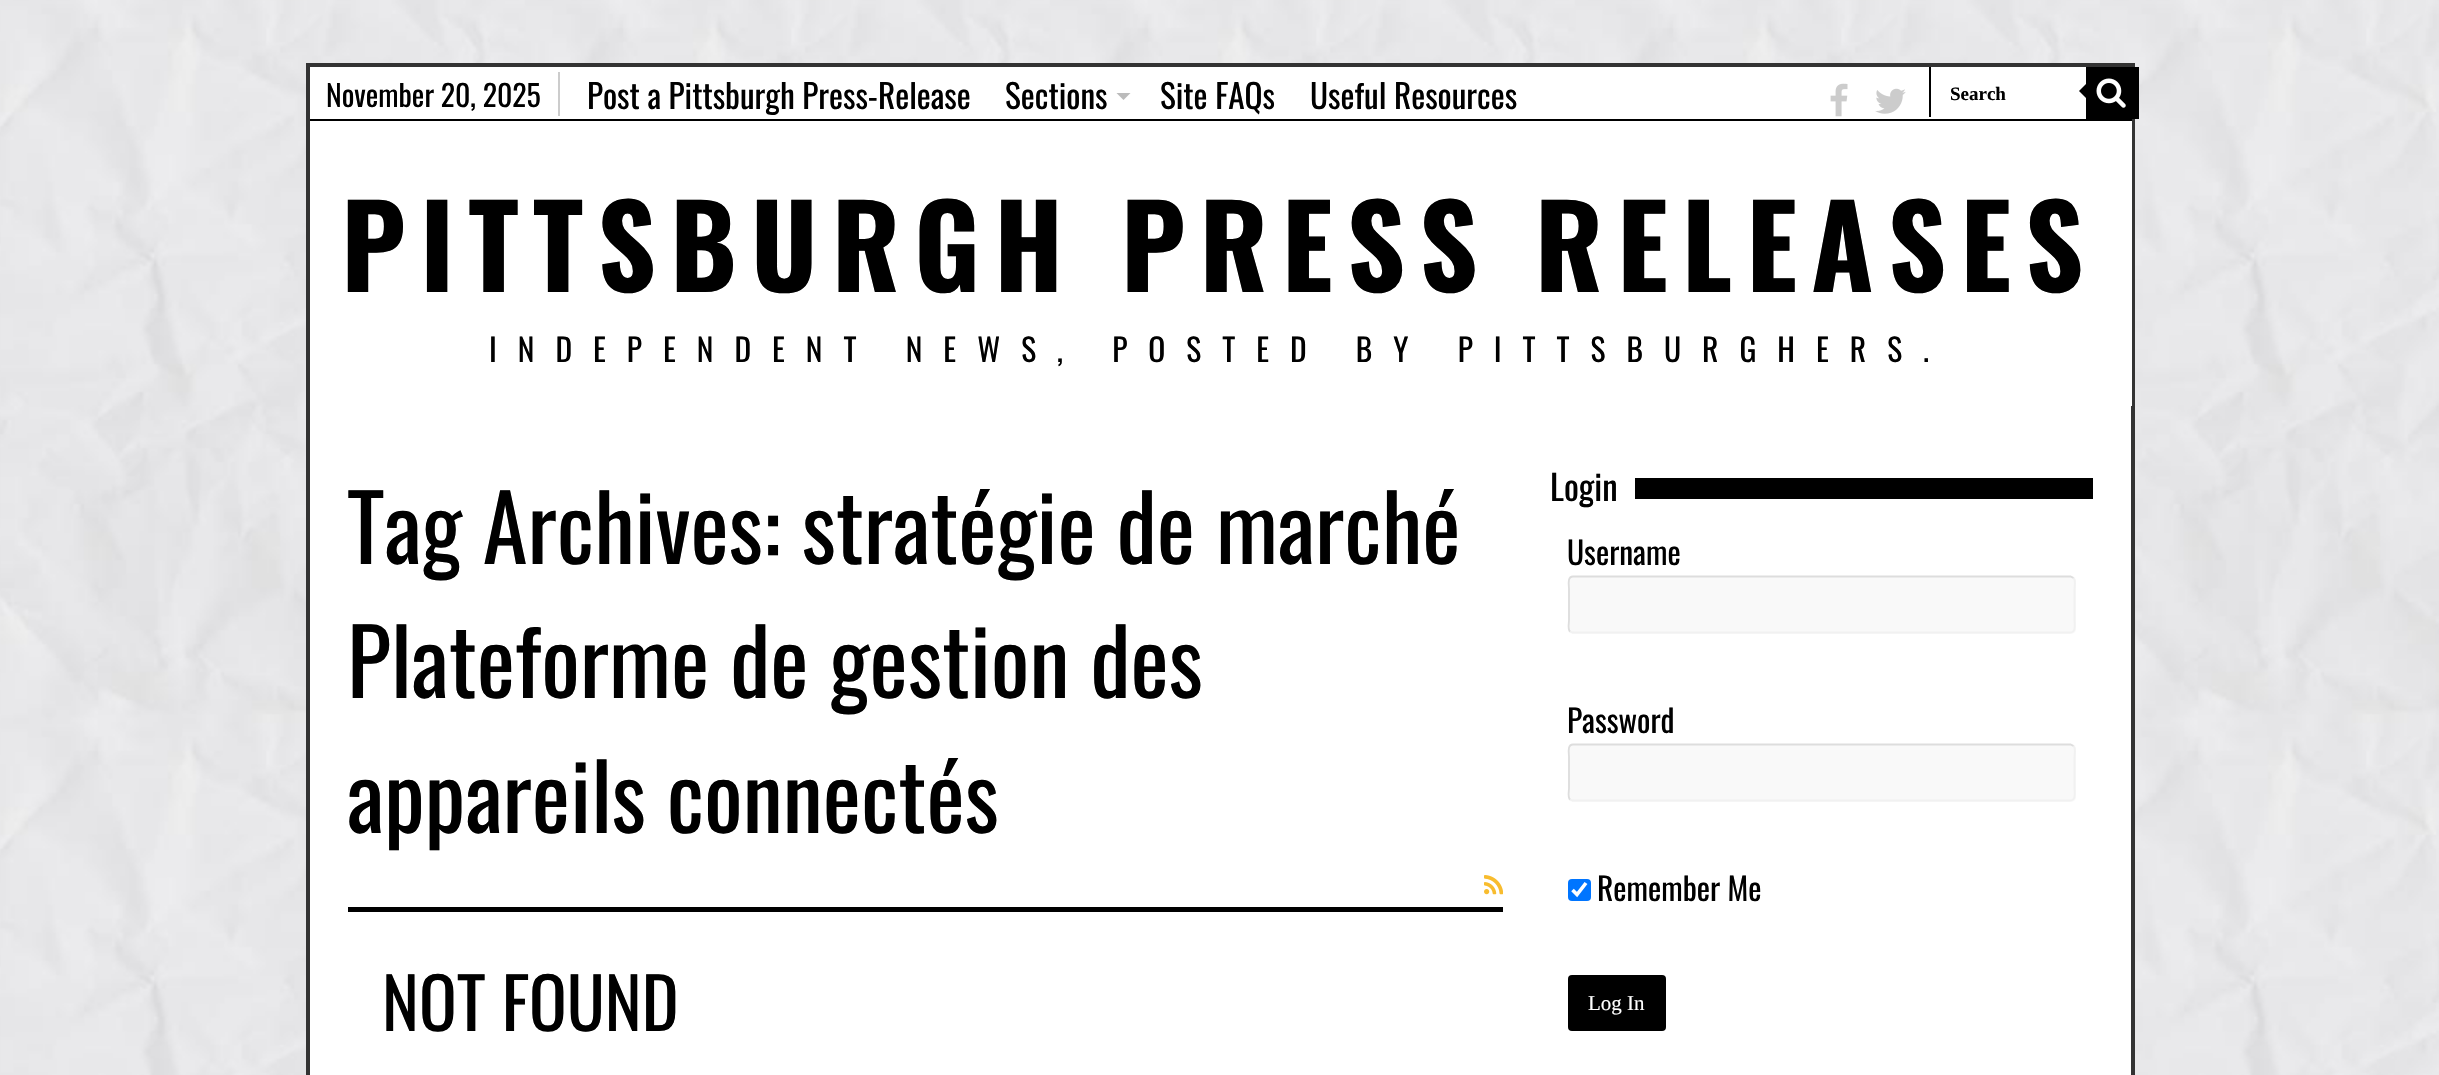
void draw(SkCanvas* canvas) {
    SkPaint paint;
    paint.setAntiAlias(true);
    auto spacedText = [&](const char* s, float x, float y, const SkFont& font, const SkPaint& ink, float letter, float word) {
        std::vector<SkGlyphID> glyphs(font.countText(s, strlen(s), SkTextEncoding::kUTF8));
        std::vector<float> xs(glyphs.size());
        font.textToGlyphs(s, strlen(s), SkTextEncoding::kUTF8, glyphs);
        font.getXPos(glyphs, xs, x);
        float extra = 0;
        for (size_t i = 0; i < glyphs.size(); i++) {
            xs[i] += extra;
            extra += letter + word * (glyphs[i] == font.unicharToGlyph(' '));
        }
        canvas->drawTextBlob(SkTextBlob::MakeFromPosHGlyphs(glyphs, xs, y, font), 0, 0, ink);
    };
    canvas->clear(0xFFFFFFFF);
    canvas->drawImageRect(SkImages::DeferredFromEncodedData(SkData::MakeFromFileName("img1.png")), SkRect::MakeXYWH(0, 0, 2439, 1075), SkSamplingOptions());
    paint.setColor(0xFFFFFFFF);
    canvas->drawRect(SkRect::MakeXYWH(310, 406, 1821, 669), paint);
    paint.setStyle(SkPaint::kStroke_Style);
    paint.setStrokeWidth(4);
    paint.setColor(0xFF333333);
    canvas->drawRect(SkRect::MakeXYWH(308, 65, 1825, 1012), paint);
    paint.setStyle(SkPaint::kFill_Style);
    paint.setColor(0xFFFFFFFF);
    canvas->drawRect(SkRect::MakeXYWH(310, 67, 1822, 339), paint);
    paint.setColor(0xFF000000);
    canvas->drawRect(SkRect::MakeXYWH(310, 119, 1822, 2), paint);
    paint.setColor(0xFFCCCCCC);
    canvas->drawRect(SkRect::MakeXYWH(558, 72, 2, 44), paint);
    SkFont font1(fontMgr->matchFamilyStyle("Oswald", SkFontStyle::Normal()), 29.75f);
    font1.setSubpixel(true);
    paint.setColor(0xFF000000);
    canvas->drawString("November 20, 2025", 326, 107, font1, paint);
    SkFont font2(fontMgr->matchFamilyStyle("Oswald", SkFontStyle::Normal()), 33.25f);
    font2.setSubpixel(true);
    canvas->drawString("Post a Pittsburgh Press-Release", 587, 109, font2, paint);
    canvas->drawString("Sections", 1005, 109, font2, paint);
    paint.setColor(0xFFBBBBBB);
    canvas->drawPath(SkPathBuilder().moveTo(1116.5f, 93).lineTo(1130.5f, 93).lineTo(1123.5f, 100).close().detach(), paint);
    paint.setColor(0xFF000000);
    canvas->drawString("Site FAQs", 1160, 109, font2, paint);
    canvas->drawString("Useful Resources", 1310, 109, font2, paint);
    canvas->drawImageRect(SkImages::DeferredFromEncodedData(SkData::MakeFromFileName("img2.png")), SkRect::MakeXYWH(1830, 83, 18, 34), SkSamplingOptions());
    canvas->drawImageRect(SkImages::DeferredFromEncodedData(SkData::MakeFromFileName("img3.png")), SkRect::MakeXYWH(1875, 88, 31, 26), SkSamplingOptions());
    canvas->drawRect(SkRect::MakeXYWH(1929, 67, 2, 50), paint);
    SkFont font3(fontMgr->matchFamilyStyle("Liberation Serif", SkFontStyle::Bold()), 19);
    font3.setSubpixel(true);
    canvas->drawString("Search", 1950, 100, font3, paint);
    canvas->drawRect(SkRect::MakeXYWH(2086, 67, 53, 52), paint);
    canvas->drawImageRect(SkImages::DeferredFromEncodedData(SkData::MakeFromFileName("img4.png")), SkRect::MakeXYWH(2096, 78, 30, 30), SkSamplingOptions());
    canvas->drawPath(SkPathBuilder().moveTo(2086, 84).lineTo(2086, 98).lineTo(2079, 91).close().detach(), paint);
    SkFont font4(fontMgr->matchFamilyStyle("Oswald", SkFontStyle::Bold()), 113.75f);
    font4.setSubpixel(true);
    spacedText("PITTSBURGH PRESS RELEASES", 341, 292, font4, paint, 14, 0);
    SkFont font5(fontMgr->matchFamilyStyle("Oswald", SkFontStyle::Normal()), 31.5f);
    font5.setSubpixel(true);
    spacedText("INDEPENDENT NEWS, POSTED BY PITTSBURGHERS.", 489, 362, font5, paint, 21, 0);
    canvas->drawRect(SkRect::MakeXYWH(348, 907, 1155, 5), paint);
    SkFont font6(fontMgr->matchFamilyStyle("Oswald", SkFontStyle::Normal()), 91);
    font6.setSubpixel(true);
    canvas->drawString("Tag Archives: stratégie de marché", 347, 564, font6, paint);
    canvas->drawString("Plateforme de gestion des", 347, 698, font6, paint);
    canvas->drawString("appareils connectés", 347, 833, font6, paint);
    canvas->drawImageRect(SkImages::DeferredFromEncodedData(SkData::MakeFromFileName("img5.png")), SkRect::MakeXYWH(1484, 875, 19, 20), SkSamplingOptions());
    SkFont font7(fontMgr->matchFamilyStyle("Oswald", SkFontStyle::Normal()), 70);
    font7.setSubpixel(true);
    canvas->drawString("NOT FOUND", 382, 1031, font7, paint);
    SkFont font8(fontMgr->matchFamilyStyle("Oswald", SkFontStyle::Normal()), 35);
    font8.setSubpixel(true);
    canvas->drawString("Login", 1550, 501, font8, paint);
    canvas->drawRect(SkRect::MakeXYWH(1635, 478, 458, 21), paint);
    canvas->drawString("Username", 1567, 565, font5, paint);
    paint.setColor(0xFFF9F9F9);
    canvas->drawRoundRect(SkRect::MakeXYWH(1568, 576, 508, 58), 5, 5, paint);
    paint.setStyle(SkPaint::kStroke_Style);
    paint.setStrokeWidth(1.8f);
    paint.setColor(0xFFF1F1F1);
    canvas->drawPath(SkPathBuilder().moveTo(2073.5f, 578).cubicTo(2076, 580.5f, 2074.5f, 587, 2074.5f, 589).lineTo(2074.5f, 620.5f).cubicTo(2074.5f, 623.5f, 2076.5f, 632.5f, 2070, 632.5f).lineTo(1573, 632.5f).lineTo(1570, 631.5f).detach(), paint);
    paint.setColor(0xFFDDDDDD);
    canvas->drawPath(SkPathBuilder().moveTo(1570, 631.5f).cubicTo(1567.5f, 629, 1569, 622.5f, 1569, 620.5f).lineTo(1569, 589).cubicTo(1569, 585.5f, 1567, 576.5f, 1573, 576.5f).lineTo(2070.5f, 576.5f).lineTo(2073.5f, 578).detach(), paint);
    paint.setStyle(SkPaint::kFill_Style);
    paint.setColor(0xFF000000);
    canvas->drawString("Password", 1567, 733, font5, paint);
    paint.setColor(0xFFF9F9F9);
    canvas->drawRoundRect(SkRect::MakeXYWH(1568, 744, 508, 58), 5, 5, paint);
    paint.setStyle(SkPaint::kStroke_Style);
    paint.setColor(0xFFF1F1F1);
    canvas->drawPath(SkPathBuilder().moveTo(2073.5f, 746).cubicTo(2076, 748.5f, 2074.5f, 755, 2074.5f, 757).lineTo(2074.5f, 788.5f).cubicTo(2074.5f, 791.5f, 2076.5f, 800.5f, 2070, 800.5f).lineTo(1573, 800.5f).lineTo(1570, 799.5f).detach(), paint);
    paint.setColor(0xFFDDDDDD);
    canvas->drawPath(SkPathBuilder().moveTo(1570, 799.5f).cubicTo(1567.5f, 797, 1569, 790.5f, 1569, 788.5f).lineTo(1569, 757).cubicTo(1569, 753.5f, 1567, 744.5f, 1573, 744.5f).lineTo(2070.5f, 744.5f).lineTo(2073.5f, 746).detach(), paint);
    paint.setStyle(SkPaint::kFill_Style);
    paint.setColor(0xFF0075FF);
    canvas->drawRoundRect(SkRect::MakeXYWH(1568, 879, 23, 22), 4, 4, paint);
    paint.setStyle(SkPaint::kStroke_Style);
    paint.setStrokeWidth(3.6f);
    paint.setColor(0xFFFFFFFF);
    canvas->drawPath(SkPathBuilder().moveTo(1572.5f, 890).lineTo(1577, 894.5f).lineTo(1586, 883).detach(), paint);
    paint.setStyle(SkPaint::kFill_Style);
    paint.setColor(0xFF000000);
    canvas->drawString("Remember Me", 1597, 901, font5, paint);
    canvas->drawRoundRect(SkRect::MakeXYWH(1568, 975, 98, 56), 4, 4, paint);
    SkFont font9(fontMgr->matchFamilyStyle("Liberation Serif", SkFontStyle::Normal()), 21);
    font9.setSubpixel(true);
    paint.setColor(0xFFFFFFFF);
    canvas->drawString("Log In", 1588, 1010, font9, paint);
}
